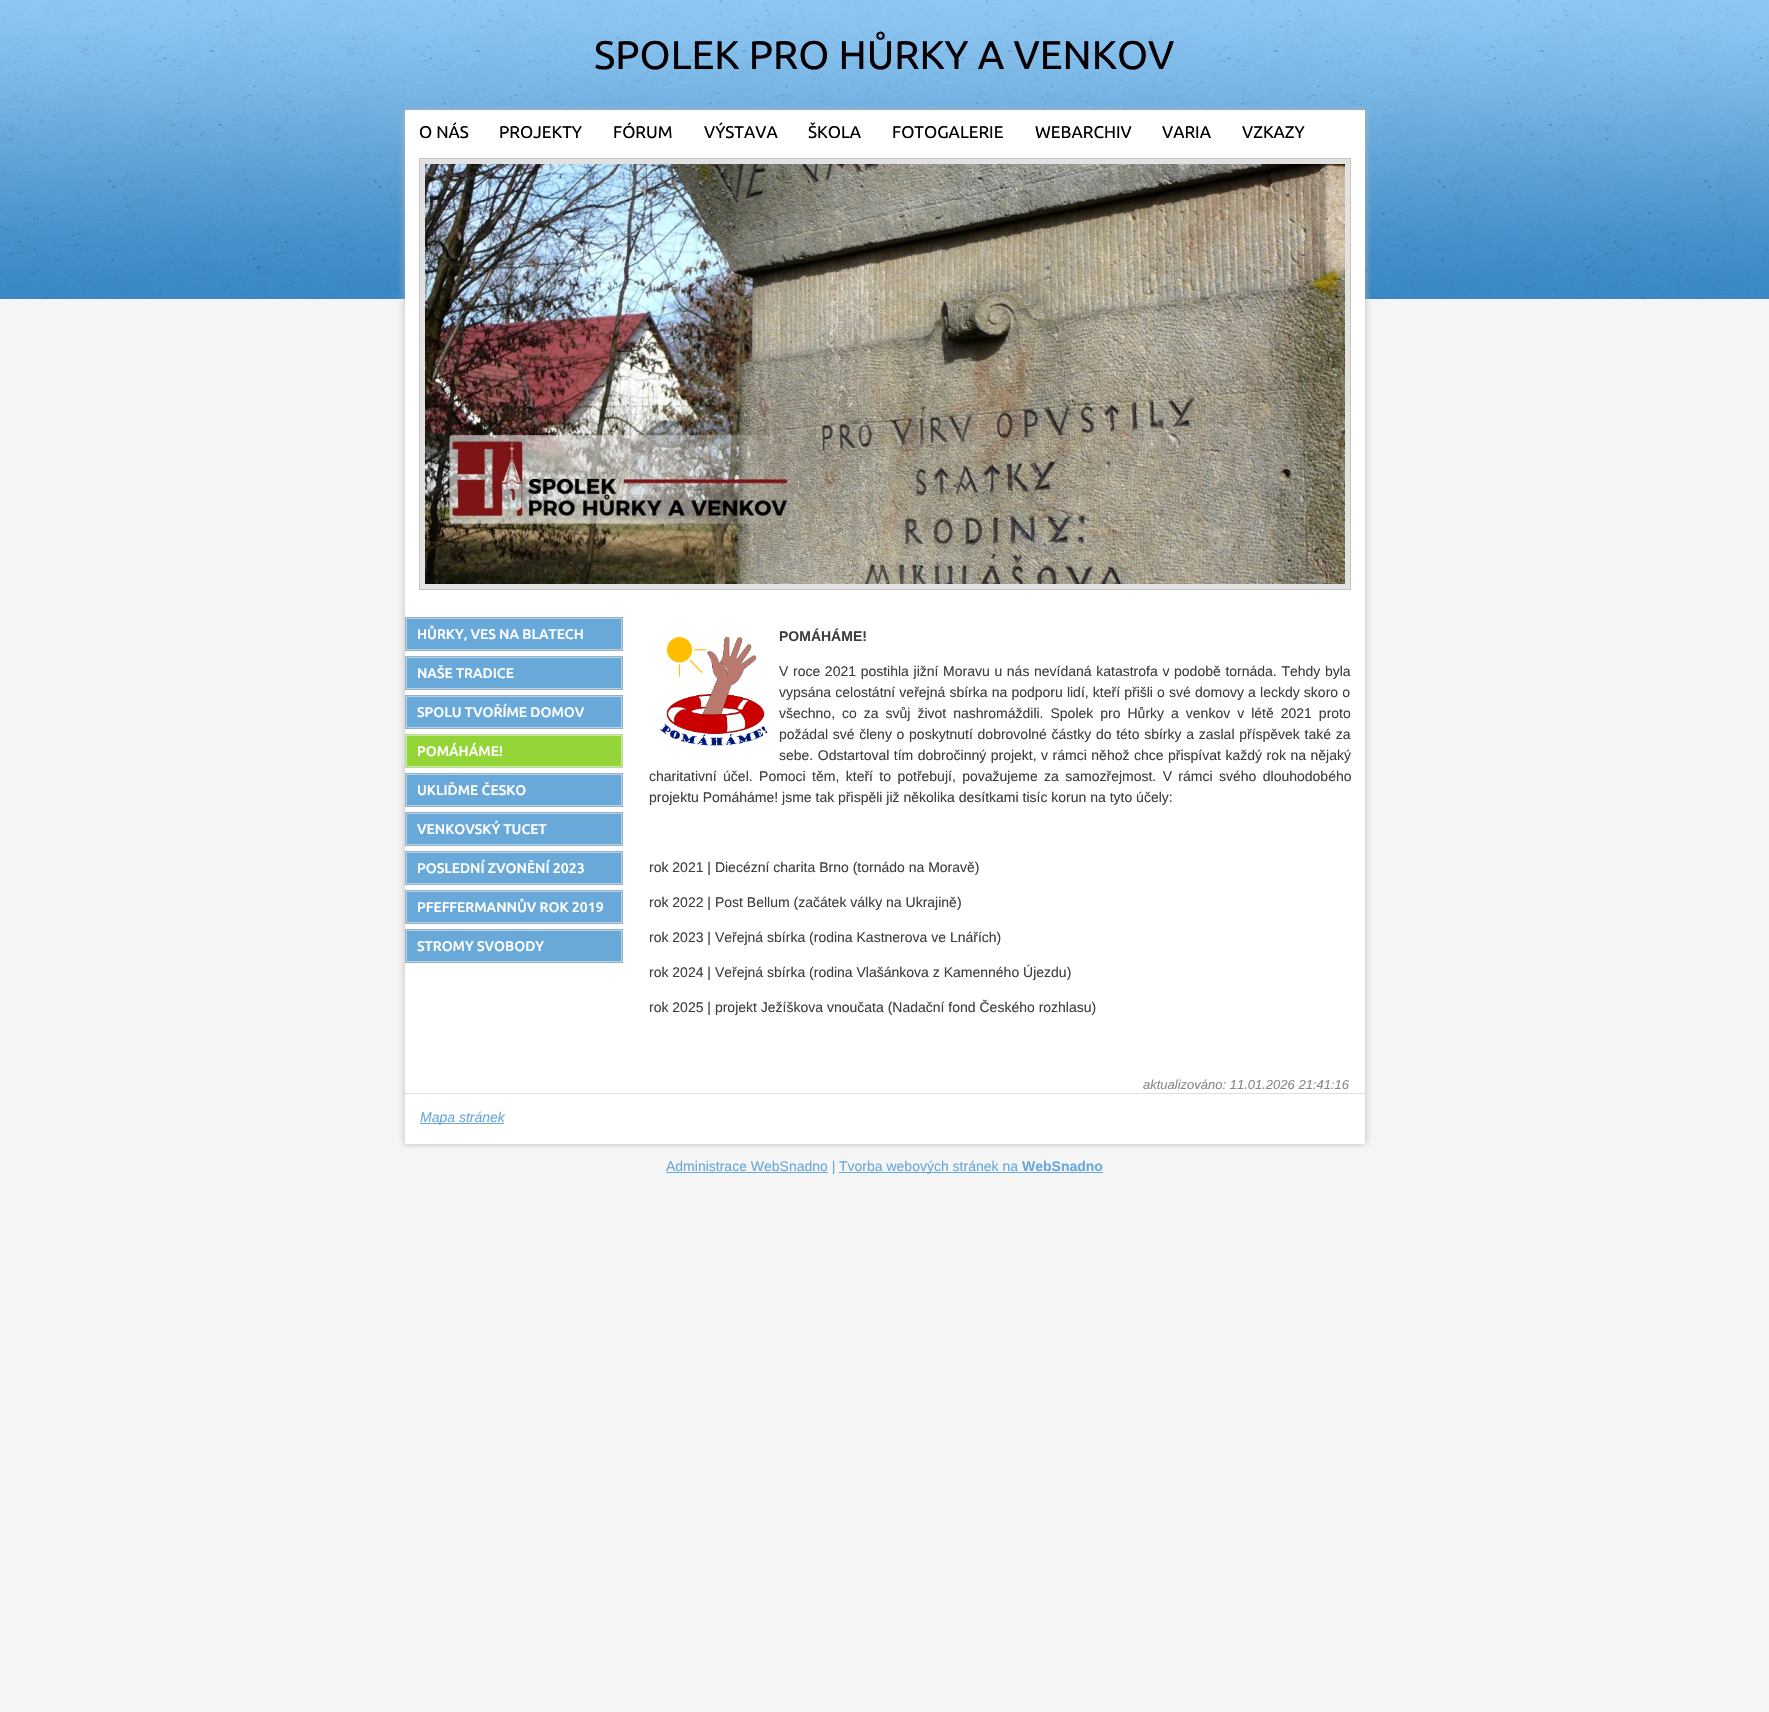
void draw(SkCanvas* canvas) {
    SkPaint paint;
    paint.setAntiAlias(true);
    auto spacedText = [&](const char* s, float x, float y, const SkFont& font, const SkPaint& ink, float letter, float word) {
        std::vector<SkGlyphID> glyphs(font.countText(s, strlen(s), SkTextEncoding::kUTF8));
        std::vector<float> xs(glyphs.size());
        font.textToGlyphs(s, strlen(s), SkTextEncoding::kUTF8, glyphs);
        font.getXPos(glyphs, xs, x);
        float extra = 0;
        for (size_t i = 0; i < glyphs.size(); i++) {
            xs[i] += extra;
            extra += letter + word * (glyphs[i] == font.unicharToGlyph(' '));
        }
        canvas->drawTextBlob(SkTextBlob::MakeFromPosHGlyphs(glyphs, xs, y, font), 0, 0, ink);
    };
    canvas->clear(0xFFF5F5F5);
    canvas->drawImageRect(SkImages::DeferredFromEncodedData(SkData::MakeFromFileName("img1.png")), SkRect::MakeXYWH(0, 0, 1769, 299), SkSamplingOptions());
    SkFont font1(fontMgr->matchFamilyStyle("Ubuntu", SkFontStyle::Normal()), 40);
    font1.setSubpixel(true);
    paint.setColor(0xFF080002);
    canvas->drawString("SPOLEK PRO HŮRKY A VENKOV", 594, 69, font1, paint);
    canvas->drawImageRect(SkImages::DeferredFromEncodedData(SkData::MakeFromFileName("img2.png")), SkRect::MakeXYWH(400, 105, 970, 9), SkSamplingOptions());
    canvas->drawImageRect(SkImages::DeferredFromEncodedData(SkData::MakeFromFileName("img3.png")), SkRect::MakeXYWH(398, 114, 974, 1025), SkSamplingOptions());
    SkFont font2(fontMgr->matchFamilyStyle("Ubuntu", SkFontStyle::Normal()), 17);
    font2.setSubpixel(true);
    paint.setColor(0xFF000000);
    canvas->drawString("O NÁS", 419, 138, font2, paint);
    canvas->drawString("PROJEKTY", 499, 138, font2, paint);
    canvas->drawString("FÓRUM", 613, 138, font2, paint);
    canvas->drawString("VÝSTAVA", 704, 138, font2, paint);
    canvas->drawString("ŠKOLA", 808, 138, font2, paint);
    canvas->drawString("FOTOGALERIE", 892, 138, font2, paint);
    canvas->drawString("WEBARCHIV", 1035, 138, font2, paint);
    canvas->drawString("VARIA", 1162, 138, font2, paint);
    canvas->drawString("VZKAZY", 1242, 138, font2, paint);
    paint.setColor(0xFFE2E2E2);
    canvas->drawRect(SkRect::MakeXYWH(419.5f, 158.5f, 931, 431), paint);
    paint.setStyle(SkPaint::kStroke_Style);
    paint.setStrokeWidth(1);
    paint.setColor(0xFFC4C4C4);
    canvas->drawRect(SkRect::MakeXYWH(419.5f, 158.5f, 931, 431), paint);
    canvas->drawImageRect(SkImages::DeferredFromEncodedData(SkData::MakeFromFileName("img4.png")), SkRect::MakeXYWH(425, 164, 920, 420), SkSamplingOptions());
    paint.setColor(0xFF97B1C5);
    canvas->drawRect(SkRect::MakeXYWH(405.5f, 617.5f, 217, 33), paint);
    paint.setStyle(SkPaint::kFill_Style);
    paint.setColor(0xFF69A9DA);
    canvas->drawRect(SkRect::MakeXYWH(406.5f, 618.5f, 215, 31), paint);
    paint.setStyle(SkPaint::kStroke_Style);
    paint.setColor(0xFFB3D1E7);
    canvas->drawRect(SkRect::MakeXYWH(406.5f, 618.5f, 215, 31), paint);
    SkFont font3(fontMgr->matchFamilyStyle("Ubuntu", SkFontStyle(500, SkFontStyle::kNormal_Width, SkFontStyle::kUpright_Slant)), 14);
    font3.setSubpixel(true);
    paint.setStyle(SkPaint::kFill_Style);
    paint.setColor(0xFFFFFFFF);
    canvas->drawString("HŮRKY‚ VES NA BLATECH", 417, 639, font3, paint);
    paint.setStyle(SkPaint::kStroke_Style);
    paint.setColor(0xFF97B1C5);
    canvas->drawRect(SkRect::MakeXYWH(405.5f, 656.5f, 217, 33), paint);
    paint.setStyle(SkPaint::kFill_Style);
    paint.setColor(0xFF69A9DA);
    canvas->drawRect(SkRect::MakeXYWH(406.5f, 657.5f, 215, 31), paint);
    paint.setStyle(SkPaint::kStroke_Style);
    paint.setColor(0xFFB3D1E7);
    canvas->drawRect(SkRect::MakeXYWH(406.5f, 657.5f, 215, 31), paint);
    paint.setStyle(SkPaint::kFill_Style);
    paint.setColor(0xFFFFFFFF);
    canvas->drawString("NAŠE TRADICE", 417, 678, font3, paint);
    paint.setStyle(SkPaint::kStroke_Style);
    paint.setColor(0xFF97B1C5);
    canvas->drawRect(SkRect::MakeXYWH(405.5f, 695.5f, 217, 33), paint);
    paint.setStyle(SkPaint::kFill_Style);
    paint.setColor(0xFF69A9DA);
    canvas->drawRect(SkRect::MakeXYWH(406.5f, 696.5f, 215, 31), paint);
    paint.setStyle(SkPaint::kStroke_Style);
    paint.setColor(0xFFB3D1E7);
    canvas->drawRect(SkRect::MakeXYWH(406.5f, 696.5f, 215, 31), paint);
    paint.setStyle(SkPaint::kFill_Style);
    paint.setColor(0xFFFFFFFF);
    canvas->drawString("SPOLU TVOŘÍME DOMOV", 417, 717, font3, paint);
    paint.setStyle(SkPaint::kStroke_Style);
    paint.setColor(0xFFB6DD98);
    canvas->drawRect(SkRect::MakeXYWH(405.5f, 734.5f, 217, 33), paint);
    paint.setStyle(SkPaint::kFill_Style);
    paint.setColor(0xFF94D537);
    canvas->drawRect(SkRect::MakeXYWH(406.5f, 735.5f, 215, 31), paint);
    paint.setStyle(SkPaint::kStroke_Style);
    paint.setColor(0xFFC9E99E);
    canvas->drawRect(SkRect::MakeXYWH(406.5f, 735.5f, 215, 31), paint);
    paint.setStyle(SkPaint::kFill_Style);
    paint.setColor(0xFFFFFFFF);
    canvas->drawString("POMÁHÁME!", 417, 756, font3, paint);
    paint.setStyle(SkPaint::kStroke_Style);
    paint.setColor(0xFF97B1C5);
    canvas->drawRect(SkRect::MakeXYWH(405.5f, 773.5f, 217, 33), paint);
    paint.setStyle(SkPaint::kFill_Style);
    paint.setColor(0xFF69A9DA);
    canvas->drawRect(SkRect::MakeXYWH(406.5f, 774.5f, 215, 31), paint);
    paint.setStyle(SkPaint::kStroke_Style);
    paint.setColor(0xFFB3D1E7);
    canvas->drawRect(SkRect::MakeXYWH(406.5f, 774.5f, 215, 31), paint);
    paint.setStyle(SkPaint::kFill_Style);
    paint.setColor(0xFFFFFFFF);
    canvas->drawString("UKLIĎME ČESKO", 417, 795, font3, paint);
    paint.setStyle(SkPaint::kStroke_Style);
    paint.setColor(0xFF97B1C5);
    canvas->drawRect(SkRect::MakeXYWH(405.5f, 812.5f, 217, 33), paint);
    paint.setStyle(SkPaint::kFill_Style);
    paint.setColor(0xFF69A9DA);
    canvas->drawRect(SkRect::MakeXYWH(406.5f, 813.5f, 215, 31), paint);
    paint.setStyle(SkPaint::kStroke_Style);
    paint.setColor(0xFFB3D1E7);
    canvas->drawRect(SkRect::MakeXYWH(406.5f, 813.5f, 215, 31), paint);
    paint.setStyle(SkPaint::kFill_Style);
    paint.setColor(0xFFFFFFFF);
    canvas->drawString("VENKOVSKÝ TUCET", 417, 834, font3, paint);
    paint.setStyle(SkPaint::kStroke_Style);
    paint.setColor(0xFF97B1C5);
    canvas->drawRect(SkRect::MakeXYWH(405.5f, 851.5f, 217, 33), paint);
    paint.setStyle(SkPaint::kFill_Style);
    paint.setColor(0xFF69A9DA);
    canvas->drawRect(SkRect::MakeXYWH(406.5f, 852.5f, 215, 31), paint);
    paint.setStyle(SkPaint::kStroke_Style);
    paint.setColor(0xFFB3D1E7);
    canvas->drawRect(SkRect::MakeXYWH(406.5f, 852.5f, 215, 31), paint);
    paint.setStyle(SkPaint::kFill_Style);
    paint.setColor(0xFFFFFFFF);
    canvas->drawString("POSLEDNÍ ZVONĚNÍ 2023", 417, 873, font3, paint);
    paint.setStyle(SkPaint::kStroke_Style);
    paint.setColor(0xFF97B1C5);
    canvas->drawRect(SkRect::MakeXYWH(405.5f, 890.5f, 217, 33), paint);
    paint.setStyle(SkPaint::kFill_Style);
    paint.setColor(0xFF69A9DA);
    canvas->drawRect(SkRect::MakeXYWH(406.5f, 891.5f, 215, 31), paint);
    paint.setStyle(SkPaint::kStroke_Style);
    paint.setColor(0xFFB3D1E7);
    canvas->drawRect(SkRect::MakeXYWH(406.5f, 891.5f, 215, 31), paint);
    paint.setStyle(SkPaint::kFill_Style);
    paint.setColor(0xFFFFFFFF);
    canvas->drawString("PFEFFERMANNŮV ROK 2019", 417, 912, font3, paint);
    paint.setStyle(SkPaint::kStroke_Style);
    paint.setColor(0xFF97B1C5);
    canvas->drawRect(SkRect::MakeXYWH(405.5f, 929.5f, 217, 33), paint);
    paint.setStyle(SkPaint::kFill_Style);
    paint.setColor(0xFF69A9DA);
    canvas->drawRect(SkRect::MakeXYWH(406.5f, 930.5f, 215, 31), paint);
    paint.setStyle(SkPaint::kStroke_Style);
    paint.setColor(0xFFB3D1E7);
    canvas->drawRect(SkRect::MakeXYWH(406.5f, 930.5f, 215, 31), paint);
    paint.setStyle(SkPaint::kFill_Style);
    paint.setColor(0xFFFFFFFF);
    canvas->drawString("STROMY SVOBODY", 417, 951, font3, paint);
    canvas->drawImageRect(SkImages::DeferredFromEncodedData(SkData::MakeFromFileName("img5.png")), SkRect::MakeXYWH(659, 636, 109, 110), SkSamplingOptions());
    SkFont font4(fontMgr->matchFamilyStyle("Liberation Sans", SkFontStyle::Bold()), 14);
    font4.setSubpixel(true);
    paint.setColor(0xFF3E3E3E);
    canvas->drawString("POMÁHÁME!", 779, 641, font4, paint);
    SkFont font5(fontMgr->matchFamilyStyle("Liberation Sans", SkFontStyle::Normal()), 14);
    font5.setSubpixel(true);
    spacedText("V roce 2021 postihla jižní Moravu u nás nevídaná katastrofa v podobě tornáda. Tehdy byla", 779, 676, font5, paint, 0, 0.75f);
    spacedText("vypsána celostátní veřejná sbírka na podporu lidí, kteří přišli o své domovy a leckdy skoro o", 779, 697, font5, paint, 0, 0.25f);
    spacedText("všechno, co za svůj život nashromáždili. Spolek pro Hůrky a venkov v létě 2021 proto", 779, 718, font5, paint, 0, 3.1f);
    spacedText("požádal své členy o poskytnutí dobrovolné částky do této sbírky a zaslal příspěvek také za", 779, 739, font5, paint, 0, 0.8f);
    spacedText("sebe. Odstartoval tím dobročinný projekt, v rámci něhož chce přispívat každý rok na nějaký", 779, 760, font5, paint, 0, 0.6f);
    spacedText("charitativní účel. Pomoci těm, kteří to potřebují, považujeme za samozřejmost. V rámci svého dlouhodobého", 649, 781, font5, paint, 0, 2.5f);
    canvas->drawString("projektu Pomáháme! jsme tak přispěli již několika desítkami tisíc korun na tyto účely:", 649, 802, font5, paint);
    canvas->drawString("rok 2021 | Diecézní charita Brno (tornádo na Moravě)", 649, 872, font5, paint);
    canvas->drawString("rok 2022 | Post Bellum (začátek války na Ukrajině)", 649, 907, font5, paint);
    canvas->drawString("rok 2023 | Veřejná sbírka (rodina Kastnerova ve Lnářích)", 649, 942, font5, paint);
    canvas->drawString("rok 2024 | Veřejná sbírka (rodina Vlašánkova z Kamenného Újezdu)", 649, 977, font5, paint);
    canvas->drawString("rok 2025 | projekt Ježíškova vnoučata (Nadační fond Českého rozhlasu)", 649, 1012, font5, paint);
    SkFont font6(fontMgr->matchFamilyStyle("Liberation Sans", SkFontStyle::Italic()), 13);
    font6.setSubpixel(true);
    paint.setColor(0xFF888888);
    canvas->drawString("aktualizováno: 11.01.2026 21:41:16", 1143, 1089, font6, paint);
    paint.setColor(0xFFDFDFDF);
    canvas->drawRect(SkRect::MakeXYWH(405, 1093, 960, 1), paint);
    paint.setColor(0xFF69A9DA);
    canvas->drawRect(SkRect::MakeXYWH(420, 1123, 84, 1), paint);
    SkFont font7(fontMgr->matchFamilyStyle("Liberation Sans", SkFontStyle::Italic()), 14);
    font7.setSubpixel(true);
    canvas->drawString("Mapa stránek", 420, 1122, font7, paint);
    canvas->drawImageRect(SkImages::DeferredFromEncodedData(SkData::MakeFromFileName("img6.png")), SkRect::MakeXYWH(400, 1139, 970, 9), SkSamplingOptions());
    canvas->drawRect(SkRect::MakeXYWH(666, 1172, 162, 1), paint);
    canvas->drawString("Administrace WebSnadno |", 666, 1171, font5, paint);
    canvas->drawRect(SkRect::MakeXYWH(839, 1172, 264, 1), paint);
    canvas->drawString("Tvorba webových stránek na", 839, 1171, font5, paint);
    canvas->drawString("WebSnadno", 1022, 1171, font4, paint);
}
